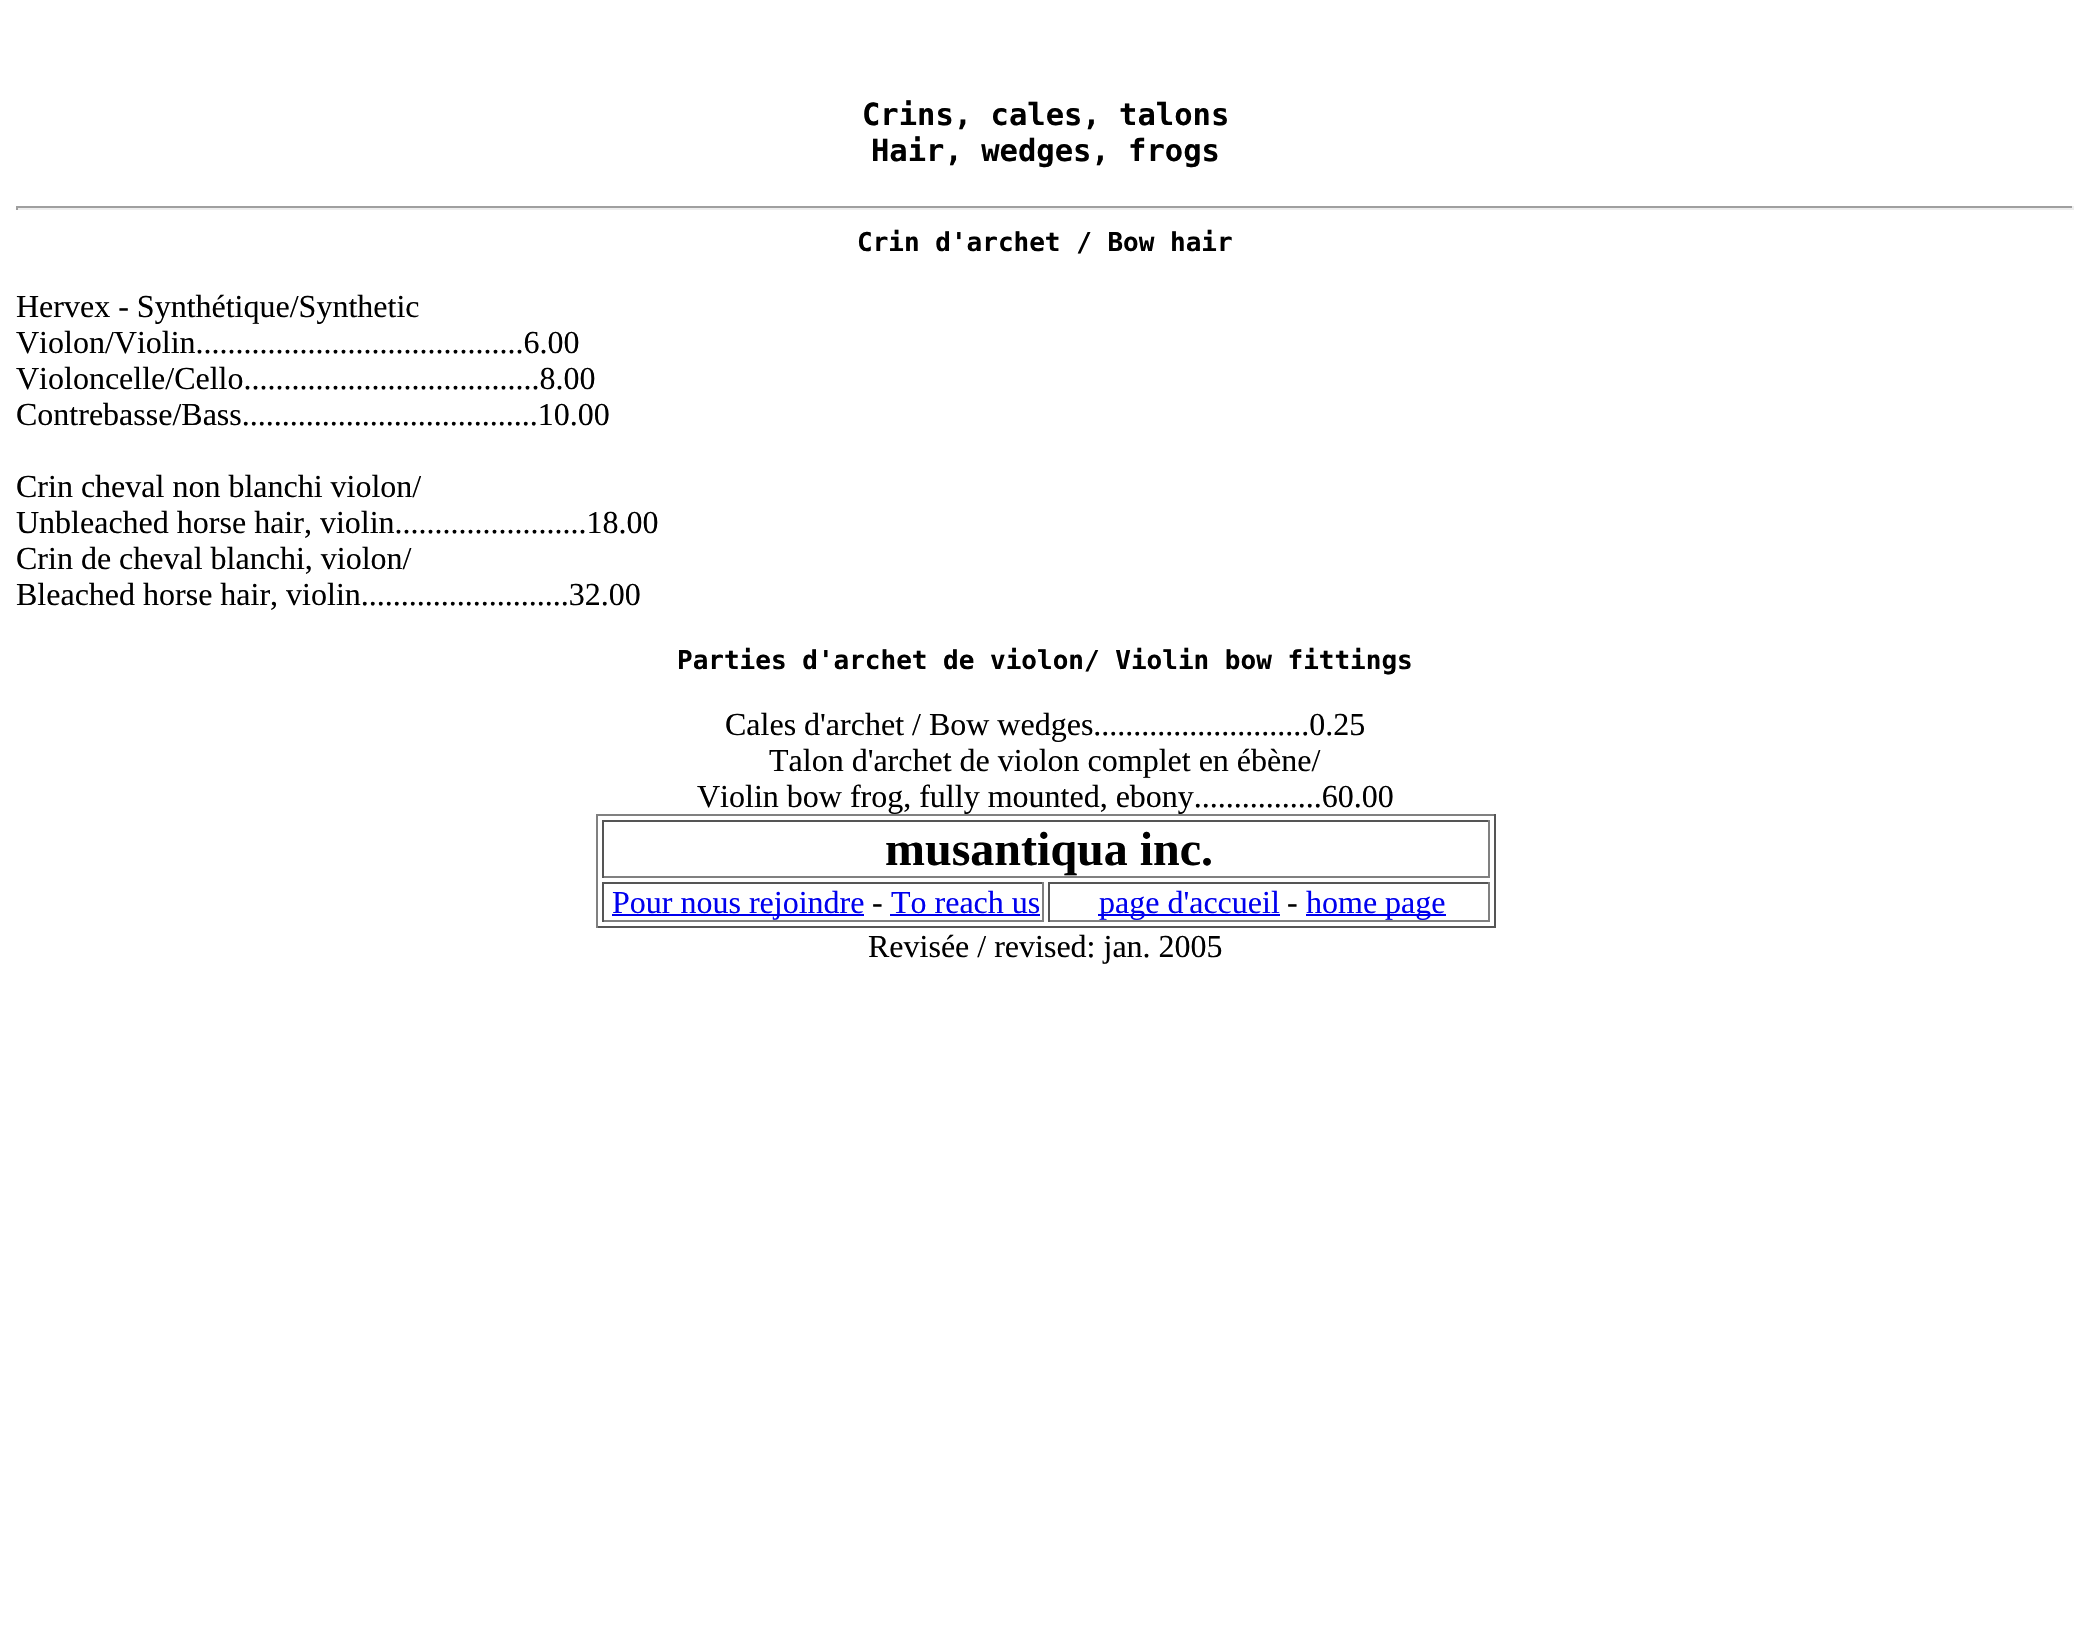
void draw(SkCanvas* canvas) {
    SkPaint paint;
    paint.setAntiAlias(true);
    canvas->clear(0xFFFFFFFF);
    SkFont font1(fontMgr->matchFamilyStyle("DejaVu Sans Mono", SkFontStyle::Bold()), 30.5f);
    font1.setSubpixel(true);
    paint.setColor(0xFF000000);
    canvas->drawString("Crins, cales, talons", 862, 125, font1, paint);
    canvas->drawString("Hair, wedges, frogs", 871, 161, font1, paint);
    paint.setColor(0xFF9F9F9F);
    canvas->drawRect(SkRect::MakeXYWH(16, 206, 2058, 2), paint);
    paint.setColor(0xFFEEEEEE);
    canvas->drawRect(SkRect::MakeXYWH(2072, 206, 2, 4), paint);
    canvas->drawRect(SkRect::MakeXYWH(16, 208, 2058, 2), paint);
    paint.setColor(0xFF9F9F9F);
    canvas->drawRect(SkRect::MakeXYWH(16, 206, 2, 4), paint);
    SkFont font2(fontMgr->matchFamilyStyle("DejaVu Sans Mono", SkFontStyle::Bold()), 26);
    font2.setSubpixel(true);
    paint.setColor(0xFF000000);
    canvas->drawString("Crin d'archet / Bow hair", 857, 251, font2, paint);
    SkFont font3(fontMgr->matchFamilyStyle("Liberation Serif", SkFontStyle::Normal()), 32);
    font3.setSubpixel(true);
    canvas->drawString("Hervex - Synthétique/Synthetic", 16, 317, font3, paint);
    canvas->drawString("Violon/Violin.........................................6.00", 16, 353, font3, paint);
    canvas->drawString("Violoncelle/Cello.....................................8.00", 16, 389, font3, paint);
    canvas->drawString("Contrebasse/Bass.....................................10.00", 16, 425, font3, paint);
    canvas->drawString("Crin cheval non blanchi violon/", 16, 497, font3, paint);
    canvas->drawString("Unbleached horse hair, violin........................18.00", 16, 533, font3, paint);
    canvas->drawString("Crin de cheval blanchi, violon/", 16, 569, font3, paint);
    canvas->drawString("Bleached horse hair, violin..........................32.00", 16, 605, font3, paint);
    canvas->drawString("Parties d'archet de violon/ Violin bow fittings", 677, 669, font2, paint);
    canvas->drawString("Cales d'archet / Bow wedges...........................0.25", 725, 735, font3, paint);
    canvas->drawString("Talon d'archet de violon complet en ébène/", 769, 771, font3, paint);
    canvas->drawString("Violin bow frog, fully mounted, ebony................60.00", 697, 807, font3, paint);
    paint.setColor(0xFF808080);
    canvas->drawRect(SkRect::MakeXYWH(596, 814, 900, 2), paint);
    paint.setColor(0xFF555555);
    canvas->drawRect(SkRect::MakeXYWH(1494, 814, 2, 114), paint);
    canvas->drawRect(SkRect::MakeXYWH(596, 926, 900, 2), paint);
    paint.setColor(0xFF808080);
    canvas->drawRect(SkRect::MakeXYWH(596, 814, 2, 114), paint);
    paint.setColor(0xFF555555);
    canvas->drawRect(SkRect::MakeXYWH(602, 820, 888, 2), paint);
    paint.setColor(0xFF808080);
    canvas->drawRect(SkRect::MakeXYWH(1488, 820, 2, 58), paint);
    canvas->drawRect(SkRect::MakeXYWH(602, 876, 888, 2), paint);
    paint.setColor(0xFF555555);
    canvas->drawRect(SkRect::MakeXYWH(602, 820, 2, 58), paint);
    SkFont font4(fontMgr->matchFamilyStyle("Liberation Serif", SkFontStyle::Bold()), 48);
    font4.setSubpixel(true);
    paint.setColor(0xFF000000);
    canvas->drawString("musantiqua inc.", 885, 865, font4, paint);
    paint.setColor(0xFF555555);
    canvas->drawRect(SkRect::MakeXYWH(602, 882, 442, 2), paint);
    paint.setColor(0xFF808080);
    canvas->drawRect(SkRect::MakeXYWH(1042, 882, 2, 40), paint);
    canvas->drawRect(SkRect::MakeXYWH(602, 920, 442, 2), paint);
    paint.setColor(0xFF555555);
    canvas->drawRect(SkRect::MakeXYWH(602, 882, 2, 40), paint);
    paint.setColor(0xFF0000EE);
    canvas->drawRect(SkRect::MakeXYWH(612, 914, 252, 2), paint);
    canvas->drawString("Pour nous rejoindre", 612, 913, font3, paint);
    paint.setColor(0xFF000000);
    canvas->drawString("-", 872, 913, font3, paint);
    paint.setColor(0xFF0000EE);
    canvas->drawString("To reach us", 891, 913, font3, paint);
    canvas->drawRect(SkRect::MakeXYWH(890, 914, 150, 2), paint);
    paint.setColor(0xFF555555);
    canvas->drawRect(SkRect::MakeXYWH(1048, 882, 442, 2), paint);
    paint.setColor(0xFF808080);
    canvas->drawRect(SkRect::MakeXYWH(1488, 882, 2, 40), paint);
    canvas->drawRect(SkRect::MakeXYWH(1048, 920, 442, 2), paint);
    paint.setColor(0xFF555555);
    canvas->drawRect(SkRect::MakeXYWH(1048, 882, 2, 40), paint);
    paint.setColor(0xFF0000EE);
    canvas->drawRect(SkRect::MakeXYWH(1098, 914, 182, 2), paint);
    canvas->drawString("page d'accueil", 1099, 913, font3, paint);
    paint.setColor(0xFF000000);
    canvas->drawString("-", 1287, 913, font3, paint);
    paint.setColor(0xFF0000EE);
    canvas->drawRect(SkRect::MakeXYWH(1306, 914, 140, 2), paint);
    canvas->drawString("home page", 1306, 913, font3, paint);
    paint.setColor(0xFF000000);
    canvas->drawString("Revisée / revised: jan. 2005", 868, 957, font3, paint);
}
